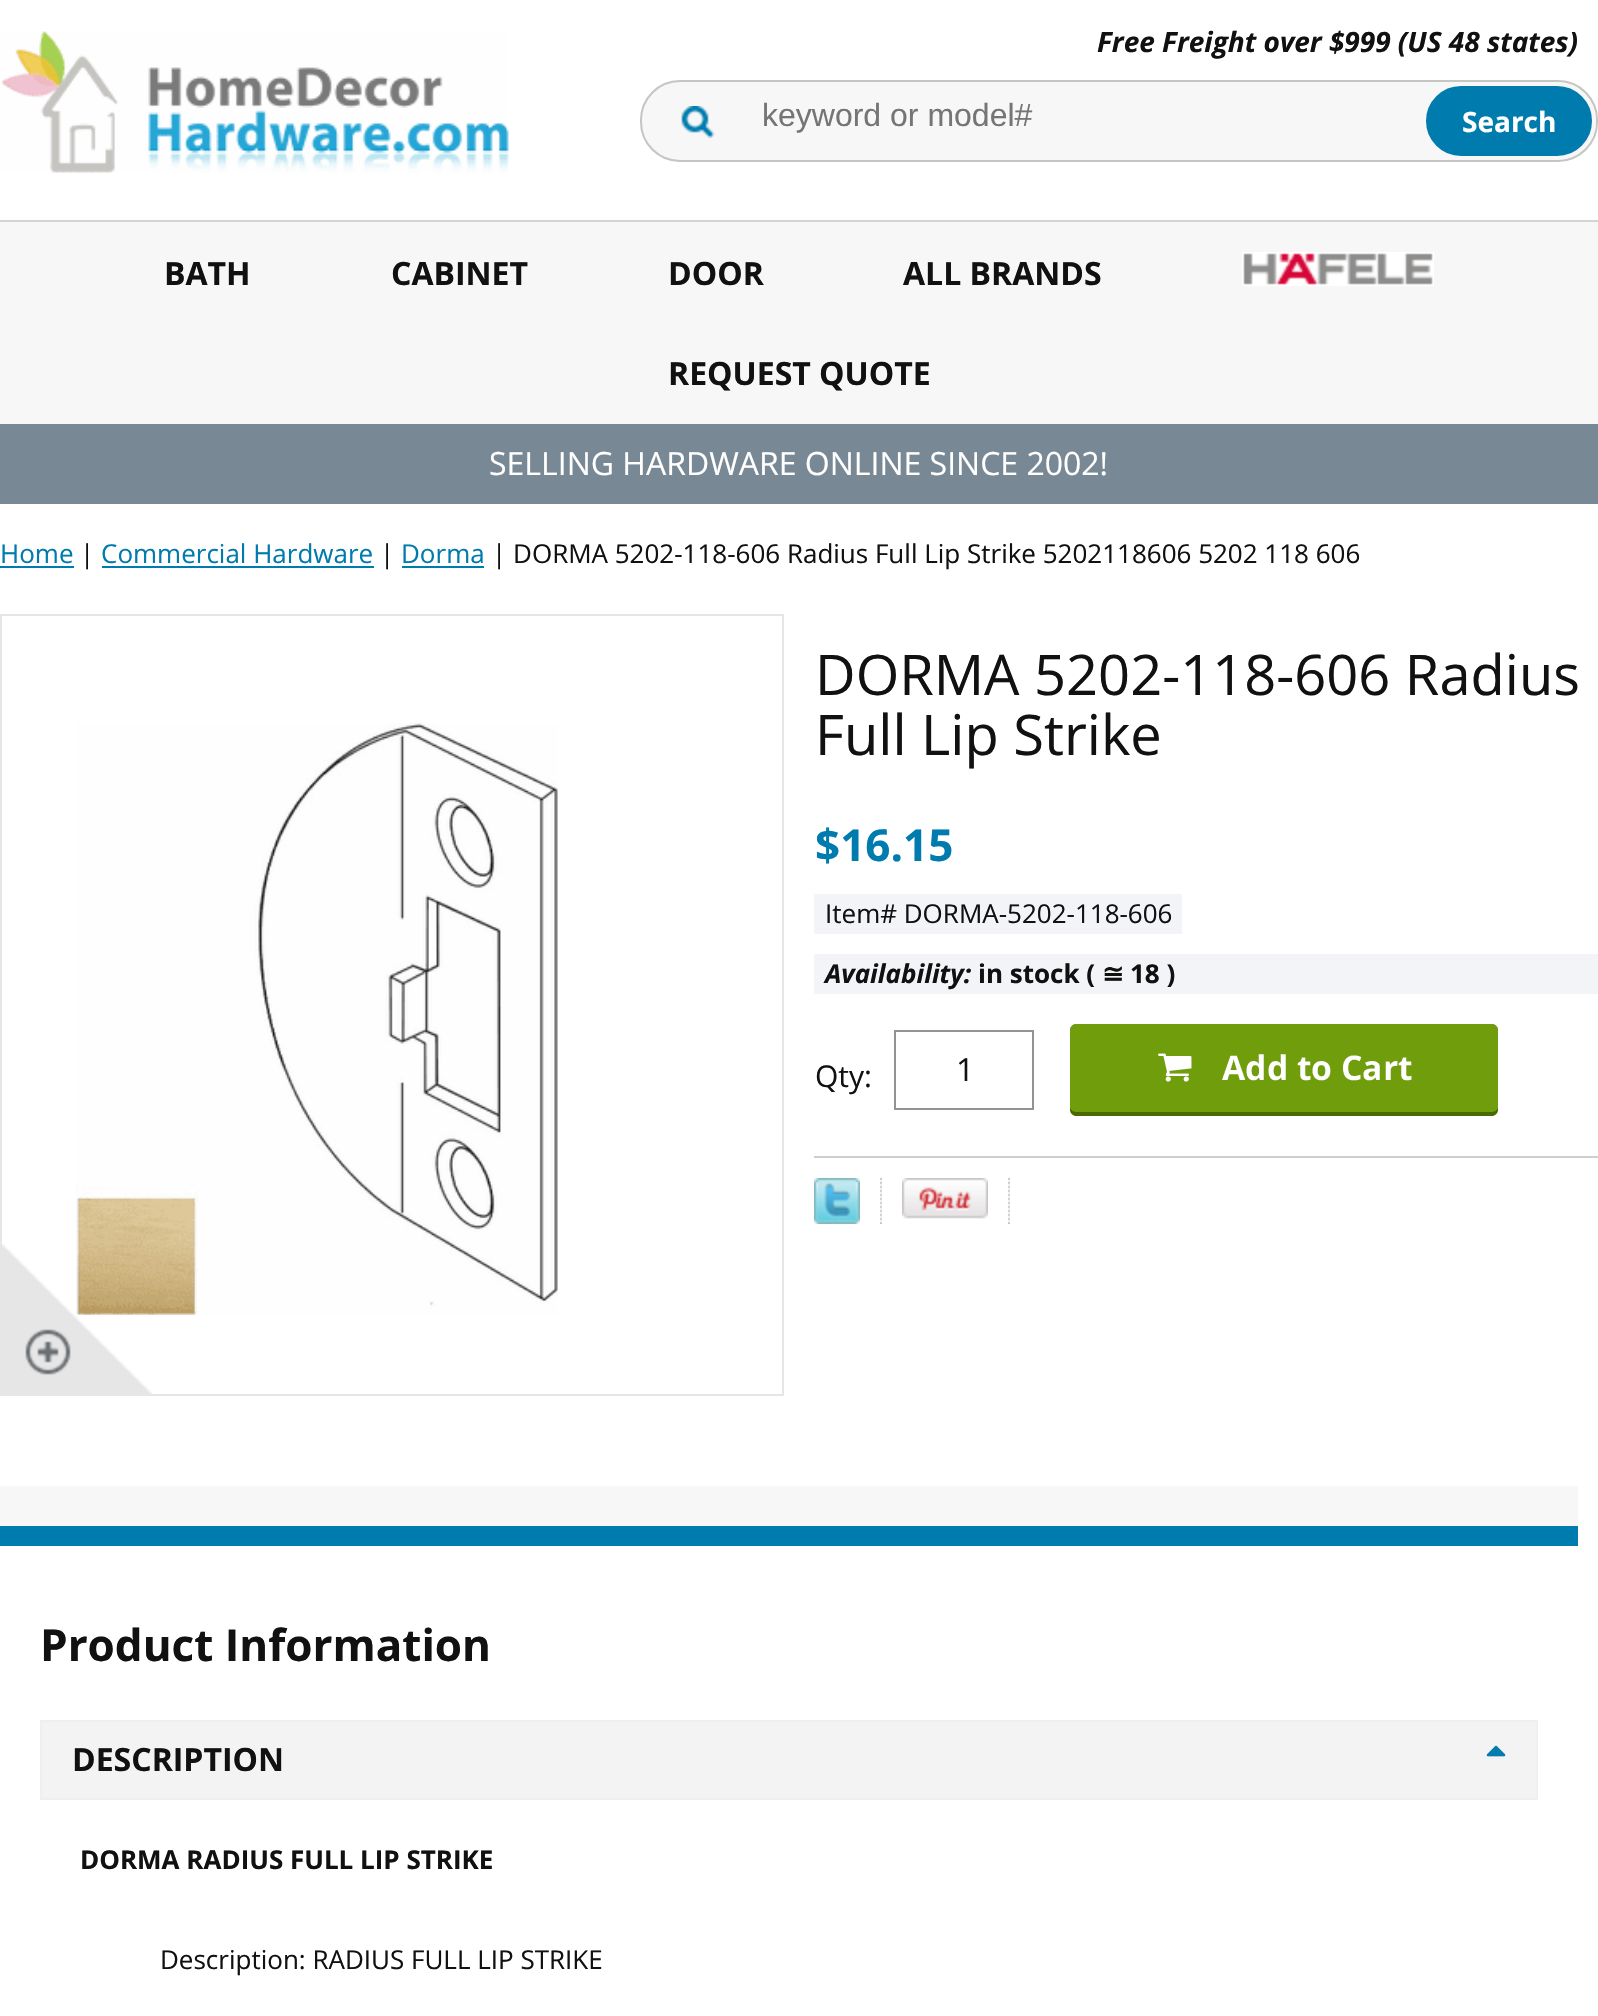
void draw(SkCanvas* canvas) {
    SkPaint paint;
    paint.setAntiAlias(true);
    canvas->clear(0xFFFFFFFF);
    canvas->drawImageRect(SkImages::DeferredFromEncodedData(SkData::MakeFromFileName("img1.png")), SkRect::MakeXYWH(1, 31, 508, 142), SkSamplingOptions());
    SkFont font1(fontMgr->matchFamilyStyle("Open Sans", SkFontStyle::BoldItalic()), 28);
    font1.setSubpixel(true);
    paint.setColor(0xFF111111);
    canvas->drawString("Free Freight over $999 (US 48 states)", 1097, 52, font1, paint);
    paint.setColor(0xFFF7F7F7);
    canvas->drawRoundRect(SkRect::MakeXYWH(640, 80, 958, 82), 40, 40, paint);
    canvas->drawImageRect(SkImages::DeferredFromEncodedData(SkData::MakeFromFileName("img2.png")), SkRect::MakeXYWH(681, 106, 34, 32), SkSamplingOptions());
    paint.setStyle(SkPaint::kStroke_Style);
    paint.setStrokeWidth(2);
    paint.setColor(0xFFC4C6C1);
    canvas->drawRoundRect(SkRect::MakeXYWH(641, 81, 956, 80), 39, 39, paint);
    SkFont font2(fontMgr->matchFamilyStyle("Liberation Sans", SkFontStyle::Normal()), 32);
    font2.setSubpixel(true);
    paint.setStyle(SkPaint::kFill_Style);
    paint.setColor(0xFF757575);
    canvas->drawString("keyword or model#", 762, 126, font2, paint);
    paint.setColor(0xFF007BAE);
    canvas->drawRoundRect(SkRect::MakeXYWH(1424, 84, 170, 74), 37, 37, paint);
    paint.setStyle(SkPaint::kStroke_Style);
    paint.setStrokeWidth(4);
    paint.setColor(0xFFF7F7F7);
    canvas->drawRoundRect(SkRect::MakeXYWH(1424, 84, 170, 74), 37, 37, paint);
    SkFont font3(fontMgr->matchFamilyStyle("Open Sans", SkFontStyle::Bold()), 28);
    font3.setSubpixel(true);
    paint.setStyle(SkPaint::kFill_Style);
    paint.setColor(0xFFFFFFFF);
    canvas->drawString("Search", 1462, 132, font3, paint);
    paint.setColor(0xFFF7F7F7);
    canvas->drawRect(SkRect::MakeXYWH(0, 222, 1598, 202), paint);
    paint.setColor(0xFFD1D5D6);
    canvas->drawRect(SkRect::MakeXYWH(0, 220, 1598, 2), paint);
    SkFont font4(fontMgr->matchFamilyStyle("Open Sans", SkFontStyle::Bold()), 32);
    font4.setSubpixel(true);
    paint.setColor(0xFF111111);
    canvas->drawString("BATH", 164, 285, font4, paint);
    canvas->drawString("CABINET", 391, 285, font4, paint);
    canvas->drawString("DOOR", 668, 285, font4, paint);
    canvas->drawString("ALL BRANDS", 903, 285, font4, paint);
    canvas->drawImageRect(SkImages::DeferredFromEncodedData(SkData::MakeFromFileName("img3.png")), SkRect::MakeXYWH(1242, 252, 192, 34), SkSamplingOptions());
    canvas->drawString("REQUEST QUOTE", 668, 385, font4, paint);
    paint.setColor(0xFF788895);
    canvas->drawRect(SkRect::MakeXYWH(0, 424, 1598, 80), paint);
    SkFont font5(fontMgr->matchFamilyStyle("Open Sans", SkFontStyle::Normal()), 32);
    font5.setSubpixel(true);
    paint.setColor(0xFFFFFFFF);
    canvas->drawString("SELLING HARDWARE ONLINE SINCE 2002!", 489, 475, font5, paint);
    SkFont font6(fontMgr->matchFamilyStyle("Open Sans", SkFontStyle::Normal()), 26);
    font6.setSubpixel(true);
    paint.setColor(0xFF007BAE);
    canvas->drawString("Home", 0, 563, font6, paint);
    canvas->drawRect(SkRect::MakeXYWH(0, 566, 74, 2), paint);
    paint.setColor(0xFF111111);
    canvas->drawString("|", 80, 563, font6, paint);
    paint.setColor(0xFF007BAE);
    canvas->drawString("Commercial Hardware", 101, 563, font6, paint);
    canvas->drawRect(SkRect::MakeXYWH(102, 566, 272, 2), paint);
    paint.setColor(0xFF111111);
    canvas->drawString("|", 380, 563, font6, paint);
    paint.setColor(0xFF007BAE);
    canvas->drawString("Dorma", 401, 563, font6, paint);
    canvas->drawRect(SkRect::MakeXYWH(402, 566, 82, 2), paint);
    paint.setColor(0xFF111111);
    canvas->drawString("| DORMA 5202-118-606 Radius Full Lip Strike 5202118606 5202 118 606", 492, 563, font6, paint);
    paint.setStyle(SkPaint::kStroke_Style);
    paint.setStrokeWidth(2);
    paint.setColor(0xFFE6E6E6);
    canvas->drawRect(SkRect::MakeXYWH(1, 615, 782, 780), paint);
    canvas->drawImageRect(SkImages::DeferredFromEncodedData(SkData::MakeFromFileName("img4.png")), SkRect::MakeXYWH(76, 723, 482, 592), SkSamplingOptions());
    canvas->drawImageRect(SkImages::DeferredFromEncodedData(SkData::MakeFromFileName("img5.png")), SkRect::MakeXYWH(2, 1244, 150, 150), SkSamplingOptions());
    SkFont font7(fontMgr->matchFamilyStyle("Open Sans", SkFontStyle::Normal()), 56);
    font7.setSubpixel(true);
    paint.setStyle(SkPaint::kFill_Style);
    paint.setColor(0xFF111111);
    canvas->drawString("DORMA 5202-118-606 Radius", 815, 695, font7, paint);
    canvas->drawString("Full Lip Strike", 815, 755, font7, paint);
    SkFont font8(fontMgr->matchFamilyStyle("Open Sans", SkFontStyle::Bold()), 44);
    font8.setSubpixel(true);
    paint.setColor(0xFF007BAE);
    canvas->drawString("$16.15", 815, 861, font8, paint);
    paint.setColor(0xFFF3F4F8);
    canvas->drawRect(SkRect::MakeXYWH(814, 894, 368, 40), paint);
    paint.setColor(0xFF111111);
    canvas->drawString("Item# DORMA-5202-118-606", 825, 923, font6, paint);
    paint.setColor(0xFFF3F4F8);
    canvas->drawRect(SkRect::MakeXYWH(814, 954, 784, 40), paint);
    SkFont font9(fontMgr->matchFamilyStyle("Open Sans", SkFontStyle::BoldItalic()), 26);
    font9.setSubpixel(true);
    paint.setColor(0xFF111111);
    canvas->drawString("Availability:", 825, 983, font9, paint);
    SkFont font10(fontMgr->matchFamilyStyle("Open Sans", SkFontStyle::Bold()), 26);
    font10.setSubpixel(true);
    canvas->drawString("in stock (", 978, 983, font10, paint);
    SkFont font11(fontMgr->matchFamilyStyle("DejaVu Sans", SkFontStyle::Bold()), 26);
    font11.setSubpixel(true);
    canvas->drawString("≅", 1102, 983, font11, paint);
    canvas->drawString("18 )", 1130, 983, font10, paint);
    SkFont font12(fontMgr->matchFamilyStyle("Open Sans", SkFontStyle::Normal()), 30);
    font12.setSubpixel(true);
    canvas->drawString("Qty:", 815, 1087, font12, paint);
    paint.setStyle(SkPaint::kStroke_Style);
    paint.setColor(0xFF939393);
    canvas->drawRect(SkRect::MakeXYWH(895, 1031, 138, 78), paint);
    paint.setStyle(SkPaint::kFill_Style);
    paint.setColor(0xFF111111);
    canvas->drawString("1", 956, 1081, font5, paint);
    canvas->drawImageRect(SkImages::DeferredFromEncodedData(SkData::MakeFromFileName("img6.png")), SkRect::MakeXYWH(1070, 1024, 428, 92), SkSamplingOptions());
    paint.setColor(0xFFCDCFCF);
    canvas->drawRect(SkRect::MakeXYWH(814, 1156, 784, 2), paint);
    canvas->drawImageRect(SkImages::DeferredFromEncodedData(SkData::MakeFromFileName("img7.png")), SkRect::MakeXYWH(814, 1178, 46, 46), SkSamplingOptions());
    canvas->drawImageRect(SkImages::DeferredFromEncodedData(SkData::MakeFromFileName("img8.png")), SkRect::MakeXYWH(880, 1178, 2, 46), SkSamplingOptions());
    canvas->drawImageRect(SkImages::DeferredFromEncodedData(SkData::MakeFromFileName("img9.png")), SkRect::MakeXYWH(902, 1178, 86, 41), SkSamplingOptions());
    canvas->drawImageRect(SkImages::DeferredFromEncodedData(SkData::MakeFromFileName("img8.png")), SkRect::MakeXYWH(1008, 1178, 2, 46), SkSamplingOptions());
    paint.setColor(0xFFF7F7F7);
    canvas->drawRect(SkRect::MakeXYWH(0, 1486, 1578, 40), paint);
    paint.setColor(0xFF007BAE);
    canvas->drawRect(SkRect::MakeXYWH(0, 1526, 1578, 20), paint);
    paint.setColor(0xFF111111);
    canvas->drawString("Product Information", 40, 1661, font8, paint);
    paint.setColor(0xFFF3F3F3);
    canvas->drawRect(SkRect::MakeXYWH(41, 1721, 1496, 78), paint);
    paint.setStyle(SkPaint::kStroke_Style);
    paint.setColor(0xFFEFEFEF);
    canvas->drawRect(SkRect::MakeXYWH(41, 1721, 1496, 78), paint);
    paint.setStyle(SkPaint::kFill_Style);
    paint.setColor(0xFF111111);
    canvas->drawString("DESCRIPTION", 72, 1771, font4, paint);
    canvas->drawImageRect(SkImages::DeferredFromEncodedData(SkData::MakeFromFileName("img10.png")), SkRect::MakeXYWH(1486, 1745, 20, 12), SkSamplingOptions());
    canvas->drawString("DORMA RADIUS FULL LIP STRIKE", 80, 1869, font10, paint);
    canvas->drawString("Description: RADIUS FULL LIP STRIKE", 160, 1969, font6, paint);
}
